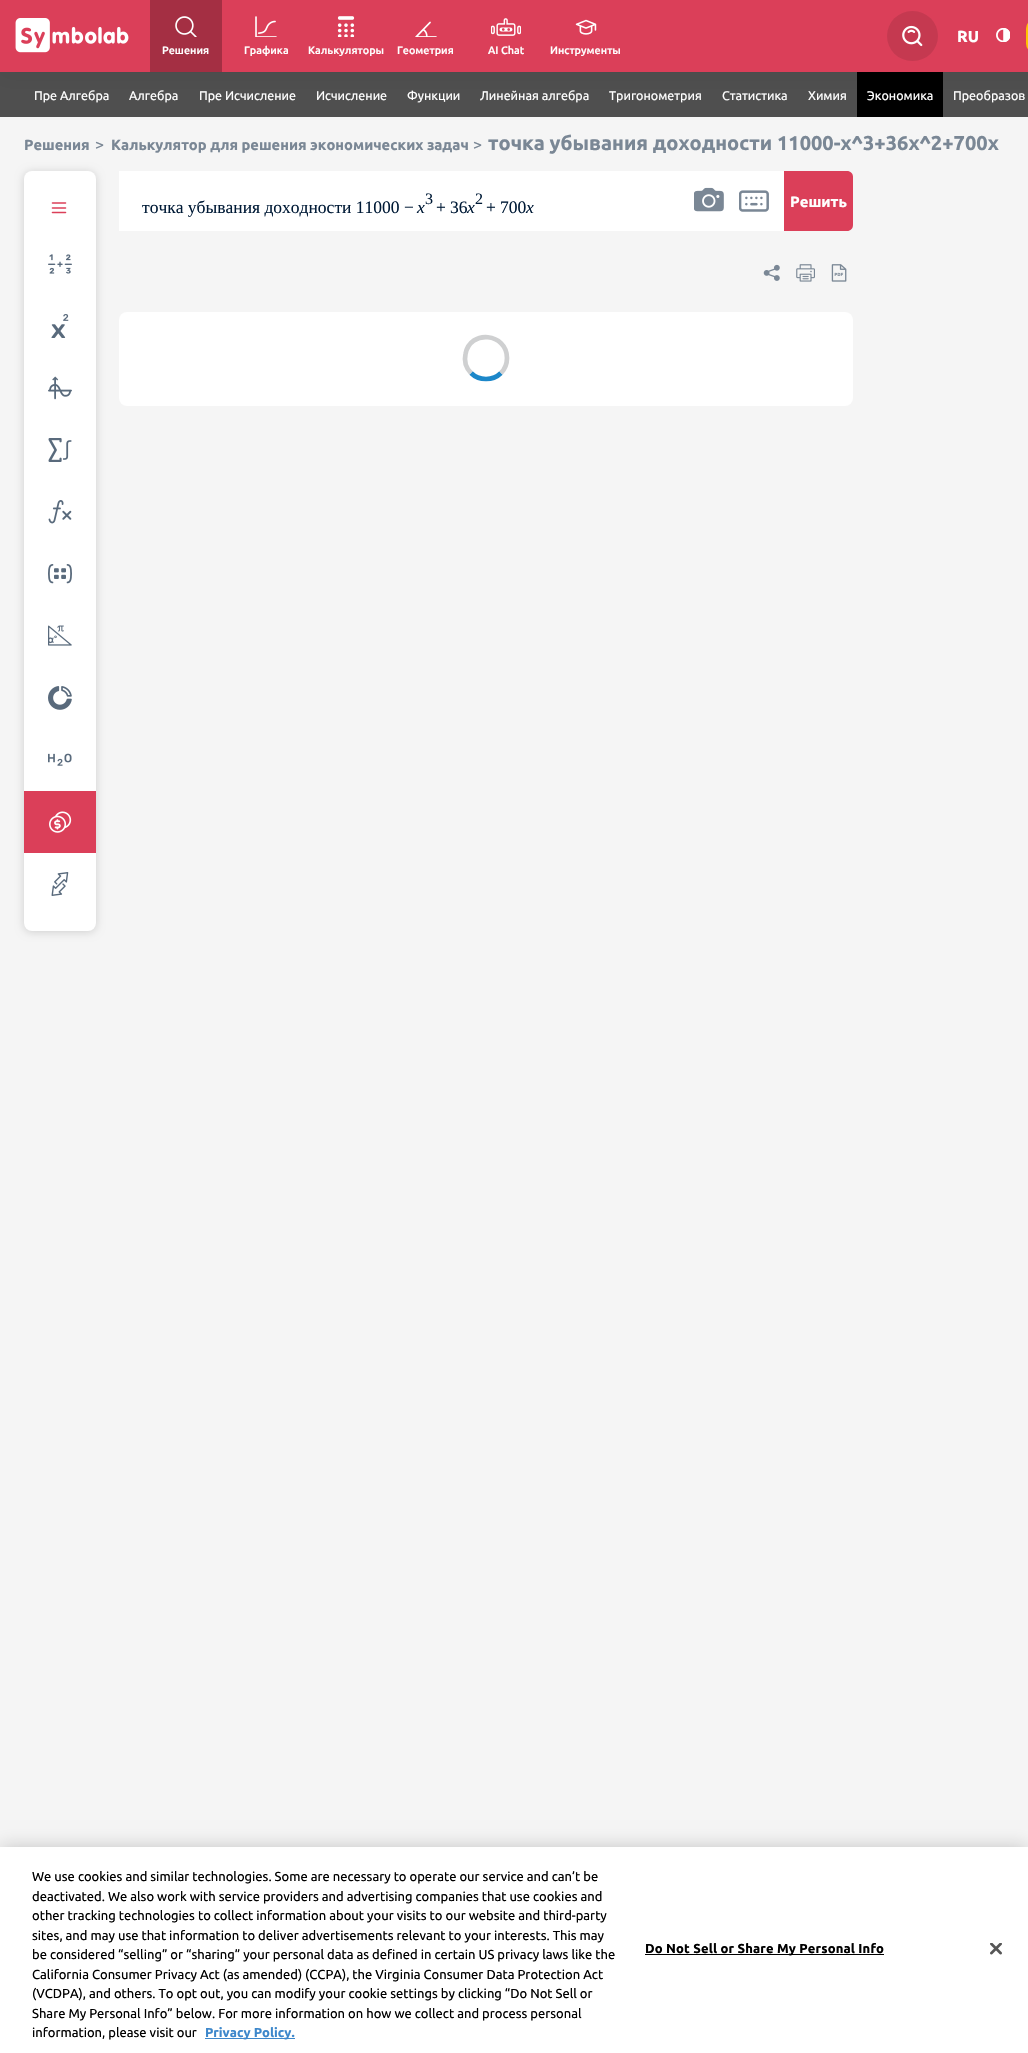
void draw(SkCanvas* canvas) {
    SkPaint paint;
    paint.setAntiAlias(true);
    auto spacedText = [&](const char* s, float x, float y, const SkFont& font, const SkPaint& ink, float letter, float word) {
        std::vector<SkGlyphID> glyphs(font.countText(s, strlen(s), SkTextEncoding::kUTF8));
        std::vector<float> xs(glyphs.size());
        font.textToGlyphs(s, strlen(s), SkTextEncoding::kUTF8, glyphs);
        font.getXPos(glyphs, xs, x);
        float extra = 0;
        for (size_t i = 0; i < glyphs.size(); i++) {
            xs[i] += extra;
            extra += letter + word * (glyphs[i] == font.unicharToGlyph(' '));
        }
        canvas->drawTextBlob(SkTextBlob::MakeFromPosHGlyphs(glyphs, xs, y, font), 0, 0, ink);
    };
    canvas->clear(0xFFF5F5F5);
    paint.setColor(0xFF4F4F4F);
    canvas->drawRect(SkRect::MakeXYWH(0, 72, 1028, 45), paint);
    paint.setColor(0xFF000000);
    canvas->drawRect(SkRect::MakeXYWH(857, 72, 86, 45), paint);
    paint.setColor(0x0D000000);
    paint.setMaskFilter(SkMaskFilter::MakeBlur(kNormal_SkBlurStyle, 9));
    canvas->drawRect(SkRect::MakeXYWH(0, 4, 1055, 72), paint);
    paint.setMaskFilter(nullptr);
    paint.setColor(0xFFDB3F59);
    canvas->drawRect(SkRect::MakeXYWH(0, 0, 1028, 72), paint);
    paint.setColor(0xFFC53950);
    canvas->drawRoundRect(SkRect::MakeXYWH(887, 11, 51, 50), 25, 25, paint);
    canvas->drawImageRect(SkImages::DeferredFromEncodedData(SkData::MakeFromFileName("img1.png")), SkRect::MakeXYWH(902, 25, 21, 22), SkSamplingOptions());
    SkFont font1(fontMgr->matchFamilyStyle("Ubuntu", SkFontStyle::Bold()), 16);
    font1.setSubpixel(true);
    paint.setColor(0xFFFFFFFF);
    canvas->drawString("RU", 957, 42, font1, paint);
    canvas->drawImageRect(SkImages::DeferredFromEncodedData(SkData::MakeFromFileName("img2.png")), SkRect::MakeXYWH(996, 28, 14, 14), SkSamplingOptions());
    paint.setColor(0xFFFFC200);
    canvas->drawRoundRect(SkRect::MakeXYWH(1026, 19, 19, 34), 17, 17, paint);
    canvas->drawImageRect(SkImages::DeferredFromEncodedData(SkData::MakeFromFileName("img3.png")), SkRect::MakeXYWH(15, 18, 114, 35), SkSamplingOptions());
    paint.setColor(0xFFA42F43);
    canvas->drawRect(SkRect::MakeXYWH(150, 0, 72, 72), paint);
    canvas->drawImageRect(SkImages::DeferredFromEncodedData(SkData::MakeFromFileName("img4.png")), SkRect::MakeXYWH(175, 16, 22, 21), SkSamplingOptions());
    SkFont font2(fontMgr->matchFamilyStyle("Ubuntu", SkFontStyle(500, SkFontStyle::kNormal_Width, SkFontStyle::kUpright_Slant)), 10.75f);
    font2.setSubpixel(true);
    paint.setColor(0xFFFFFFFF);
    canvas->drawString("Решения", 162, 54, font2, paint);
    canvas->drawImageRect(SkImages::DeferredFromEncodedData(SkData::MakeFromFileName("img5.png")), SkRect::MakeXYWH(255, 16, 22, 21), SkSamplingOptions());
    canvas->drawString("Графика", 244, 54, font2, paint);
    canvas->drawImageRect(SkImages::DeferredFromEncodedData(SkData::MakeFromFileName("img6.png")), SkRect::MakeXYWH(337, 16, 18, 21), SkSamplingOptions());
    canvas->drawString("Калькуляторы", 308, 54, font2, paint);
    canvas->drawImageRect(SkImages::DeferredFromEncodedData(SkData::MakeFromFileName("img7.png")), SkRect::MakeXYWH(415, 21, 22, 16), SkSamplingOptions());
    canvas->drawString("Геометрия", 397, 54, font2, paint);
    canvas->drawImageRect(SkImages::DeferredFromEncodedData(SkData::MakeFromFileName("img8.png")), SkRect::MakeXYWH(491, 18, 30, 18), SkSamplingOptions());
    canvas->drawString("AI Chat", 488, 54, font2, paint);
    canvas->drawImageRect(SkImages::DeferredFromEncodedData(SkData::MakeFromFileName("img9.png")), SkRect::MakeXYWH(575, 19, 22, 16), SkSamplingOptions());
    canvas->drawString("Инструменты", 550, 54, font2, paint);
    SkFont font3(fontMgr->matchFamilyStyle("Ubuntu", SkFontStyle::Normal()), 12.5f);
    font3.setSubpixel(true);
    canvas->drawString("Пре Алгебра", 34, 100, font3, paint);
    canvas->drawString("Алгебра", 129, 100, font3, paint);
    canvas->drawString("Пре Исчисление", 199, 100, font3, paint);
    canvas->drawString("Исчисление", 316, 100, font3, paint);
    canvas->drawString("Функции", 407, 100, font3, paint);
    canvas->drawString("Линейная алгебра", 480, 100, font3, paint);
    canvas->drawString("Тригонометрия", 609, 100, font3, paint);
    canvas->drawString("Статистика", 722, 100, font3, paint);
    canvas->drawString("Химия", 808, 100, font3, paint);
    canvas->drawString("Экономика", 867, 100, font3, paint);
    canvas->drawString("Преобразов", 953, 100, font3, paint);
    SkFont font4(fontMgr->matchFamilyStyle("Ubuntu", SkFontStyle::Bold()), 14.7f);
    font4.setSubpixel(true);
    paint.setColor(0xFF7A8795);
    canvas->drawString("Решения", 24, 150, font4, paint);
    SkFont font5(fontMgr->matchFamilyStyle("Ubuntu", SkFontStyle::Normal()), 16);
    font5.setSubpixel(true);
    canvas->drawString(">", 95, 150, font5, paint);
    canvas->drawString("Калькулятор для решения экономических задач", 111, 150, font4, paint);
    canvas->drawString(">", 473, 150, font5, paint);
    SkFont font6(fontMgr->matchFamilyStyle("Ubuntu", SkFontStyle::Bold()), 20);
    font6.setSubpixel(true);
    canvas->drawString("точка убывания доходности 11000-x^3+36x^2+700x", 488, 150, font6, paint);
    paint.setColor(0x29000000);
    paint.setMaskFilter(SkMaskFilter::MakeBlur(kNormal_SkBlurStyle, 4));
    canvas->drawRoundRect(SkRect::MakeXYWH(24, 172, 72, 760), 8, 8, paint);
    paint.setMaskFilter(nullptr);
    paint.setColor(0xFFFFFFFF);
    canvas->drawRoundRect(SkRect::MakeXYWH(24, 171, 72, 760), 8, 8, paint);
    paint.setStyle(SkPaint::kStroke_Style);
    paint.setStrokeWidth(1.6f);
    paint.setStrokeCap(SkPaint::kRound_Cap);
    paint.setStrokeJoin(SkPaint::kRound_Join);
    paint.setColor(0xFFDB3F59);
    canvas->drawPath(SkPathBuilder().moveTo(52.5f, 212.5f).lineTo(65.5f, 212.5f).moveTo(52.5f, 208).lineTo(65.5f, 208).moveTo(52.5f, 203).lineTo(65.5f, 203).detach(), paint);
    canvas->drawImageRect(SkImages::DeferredFromEncodedData(SkData::MakeFromFileName("img10.png")), SkRect::MakeXYWH(48, 254, 24, 20), SkSamplingOptions());
    canvas->drawImageRect(SkImages::DeferredFromEncodedData(SkData::MakeFromFileName("img11.png")), SkRect::MakeXYWH(51, 314, 18, 24), SkSamplingOptions());
    canvas->drawImageRect(SkImages::DeferredFromEncodedData(SkData::MakeFromFileName("img12.png")), SkRect::MakeXYWH(48, 376, 24, 24), SkSamplingOptions());
    canvas->drawImageRect(SkImages::DeferredFromEncodedData(SkData::MakeFromFileName("img13.png")), SkRect::MakeXYWH(48, 438, 24, 24), SkSamplingOptions());
    canvas->drawImageRect(SkImages::DeferredFromEncodedData(SkData::MakeFromFileName("img14.png")), SkRect::MakeXYWH(48, 500, 24, 24), SkSamplingOptions());
    canvas->drawImageRect(SkImages::DeferredFromEncodedData(SkData::MakeFromFileName("img15.png")), SkRect::MakeXYWH(48, 564, 24, 20), SkSamplingOptions());
    canvas->drawImageRect(SkImages::DeferredFromEncodedData(SkData::MakeFromFileName("img16.png")), SkRect::MakeXYWH(48, 625, 24, 21), SkSamplingOptions());
    canvas->drawImageRect(SkImages::DeferredFromEncodedData(SkData::MakeFromFileName("img17.png")), SkRect::MakeXYWH(48, 686, 24, 24), SkSamplingOptions());
    canvas->drawImageRect(SkImages::DeferredFromEncodedData(SkData::MakeFromFileName("img18.png")), SkRect::MakeXYWH(48, 753, 24, 13), SkSamplingOptions());
    paint.setStyle(SkPaint::kFill_Style);
    canvas->drawRect(SkRect::MakeXYWH(24, 791, 72, 62), paint);
    canvas->drawImageRect(SkImages::DeferredFromEncodedData(SkData::MakeFromFileName("img19.png")), SkRect::MakeXYWH(49, 811, 23, 22), SkSamplingOptions());
    canvas->drawImageRect(SkImages::DeferredFromEncodedData(SkData::MakeFromFileName("img20.png")), SkRect::MakeXYWH(51, 872, 18, 24), SkSamplingOptions());
    paint.setColor(0xFFFFFFFF);
    canvas->drawRect(SkRect::MakeXYWH(119, 171, 665, 60), paint);
    SkFont font7(fontMgr->matchFamilyStyle("Liberation Serif", SkFontStyle::Normal()), 16);
    font7.setSubpixel(true);
    paint.setColor(0xFF001A36);
    canvas->drawString("3", 425, 204, font7, paint);
    canvas->drawString("2", 475, 204, font7, paint);
    SkFont font8(fontMgr->matchFamilyStyle("Liberation Serif", SkFontStyle::Normal()), 17.5f);
    font8.setSubpixel(true);
    canvas->drawString("точка убывания доходности 11000", 142, 213, font8, paint);
    canvas->drawString("−", 404, 213, font8, paint);
    SkFont font9(fontMgr->matchFamilyStyle("Liberation Serif", SkFontStyle::Italic()), 17.5f);
    font9.setSubpixel(true);
    canvas->drawString("x", 417, 213, font9, paint);
    canvas->drawString("+", 436, 213, font8, paint);
    canvas->drawString("36", 450, 213, font8, paint);
    canvas->drawString("x", 467, 213, font9, paint);
    canvas->drawString("+", 486, 213, font8, paint);
    canvas->drawString("700", 500, 213, font8, paint);
    canvas->drawString("x", 526, 213, font9, paint);
    canvas->drawImageRect(SkImages::DeferredFromEncodedData(SkData::MakeFromFileName("img21.png")), SkRect::MakeXYWH(694, 187, 30, 25), SkSamplingOptions());
    canvas->drawImageRect(SkImages::DeferredFromEncodedData(SkData::MakeFromFileName("img22.png")), SkRect::MakeXYWH(739, 190, 30, 22), SkSamplingOptions());
    paint.setColor(0xFFDB3F59);
    canvas->drawPath(SkPathBuilder().moveTo(784, 171).lineTo(847, 171).cubicTo(850.5f, 171, 853, 173.5f, 853, 177).lineTo(853, 225).cubicTo(853, 228.5f, 850.5f, 231, 847, 231).lineTo(784, 231).close().detach(), paint);
    SkFont font10(fontMgr->matchFamilyStyle("Ubuntu", SkFontStyle::Bold()), 15);
    font10.setSubpixel(true);
    paint.setColor(0xFFFFFFFF);
    canvas->drawString("Решить", 790, 207, font10, paint);
    canvas->drawImageRect(SkImages::DeferredFromEncodedData(SkData::MakeFromFileName("img23.png")), SkRect::MakeXYWH(763, 264, 17, 17), SkSamplingOptions());
    canvas->drawImageRect(SkImages::DeferredFromEncodedData(SkData::MakeFromFileName("img24.png")), SkRect::MakeXYWH(796, 264, 19, 18), SkSamplingOptions());
    canvas->drawImageRect(SkImages::DeferredFromEncodedData(SkData::MakeFromFileName("img25.png")), SkRect::MakeXYWH(831, 264, 16, 18), SkSamplingOptions());
    canvas->drawRoundRect(SkRect::MakeXYWH(119, 312, 734, 94), 8, 8, paint);
    paint.setStyle(SkPaint::kStroke_Style);
    paint.setStrokeWidth(4.7f);
    paint.setStrokeCap(SkPaint::kButt_Cap);
    paint.setStrokeJoin(SkPaint::kMiter_Join);
    paint.setColor(0xFF1C87C9);
    canvas->drawPath(SkPathBuilder().moveTo(501, 373).cubicTo(493, 381, 479, 381, 471, 373).detach(), paint);
    paint.setColor(0xFFCFD0D1);
    canvas->drawPath(SkPathBuilder().moveTo(471, 373).cubicTo(466, 368, 464, 361, 465.5f, 354).cubicTo(470, 329, 507, 333, 507, 358).cubicTo(507, 363.5f, 505, 369, 501, 373).detach(), paint);
    paint.setStyle(SkPaint::kFill_Style);
    paint.setColor(0x33000000);
    paint.setMaskFilter(SkMaskFilter::MakeBlur(kNormal_SkBlurStyle, 9));
    canvas->drawRect(SkRect::MakeXYWH(0, 1847, 1028, 206), paint);
    paint.setMaskFilter(nullptr);
    paint.setColor(0xFFFFFFFF);
    canvas->drawRect(SkRect::MakeXYWH(0, 1847, 1028, 206), paint);
    SkFont font11(fontMgr->matchFamilyStyle("Ubuntu", SkFontStyle::Normal()), 13);
    font11.setSubpixel(true);
    paint.setColor(0xFF000000);
    canvas->drawString("We use cookies and similar technologies. Some are necessary to operate our service and can’t be", 32, 1881, font11, paint);
    canvas->drawString("deactivated. We also work with service providers and advertising companies that use cookies and", 32, 1901, font11, paint);
    canvas->drawString("other tracking technologies to collect information about your visits to our website and third-party", 32, 1920, font11, paint);
    canvas->drawString("sites, and may use that information to deliver advertisements relevant to your interests. This may", 32, 1940, font11, paint);
    canvas->drawString("be considered “selling” or “sharing” your personal data as defined in certain US privacy laws like the", 32, 1959, font11, paint);
    canvas->drawString("California Consumer Privacy Act (as amended) (CCPA), the Virginia Consumer Data Protection Act", 32, 1979, font11, paint);
    canvas->drawString("(VCDPA), and others. To opt out, you can modify your cookie settings by clicking “Do Not Sell or", 32, 1998, font11, paint);
    canvas->drawString("Share My Personal Info” below. For more information on how we collect and process personal", 32, 2018, font11, paint);
    canvas->drawString("information, please visit our", 32, 2037, font11, paint);
    paint.setColor(0xFF3D87CB);
    canvas->drawRect(SkRect::MakeXYWH(205, 2038, 90, 1), paint);
    SkFont font12(fontMgr->matchFamilyStyle("Ubuntu", SkFontStyle::Bold()), 13);
    font12.setSubpixel(true);
    canvas->drawString("Privacy Policy.", 205, 2037, font12, paint);
    paint.setColor(0xFF000000);
    canvas->drawRect(SkRect::MakeXYWH(645, 1954, 239, 1), paint);
    spacedText("Do Not Sell or Share My Personal Info", 645, 1953, font12, paint, 0.15f, 0);
    canvas->drawImageRect(SkImages::DeferredFromEncodedData(SkData::MakeFromFileName("img26.png")), SkRect::MakeXYWH(990, 1943, 12, 12), SkSamplingOptions());
}
